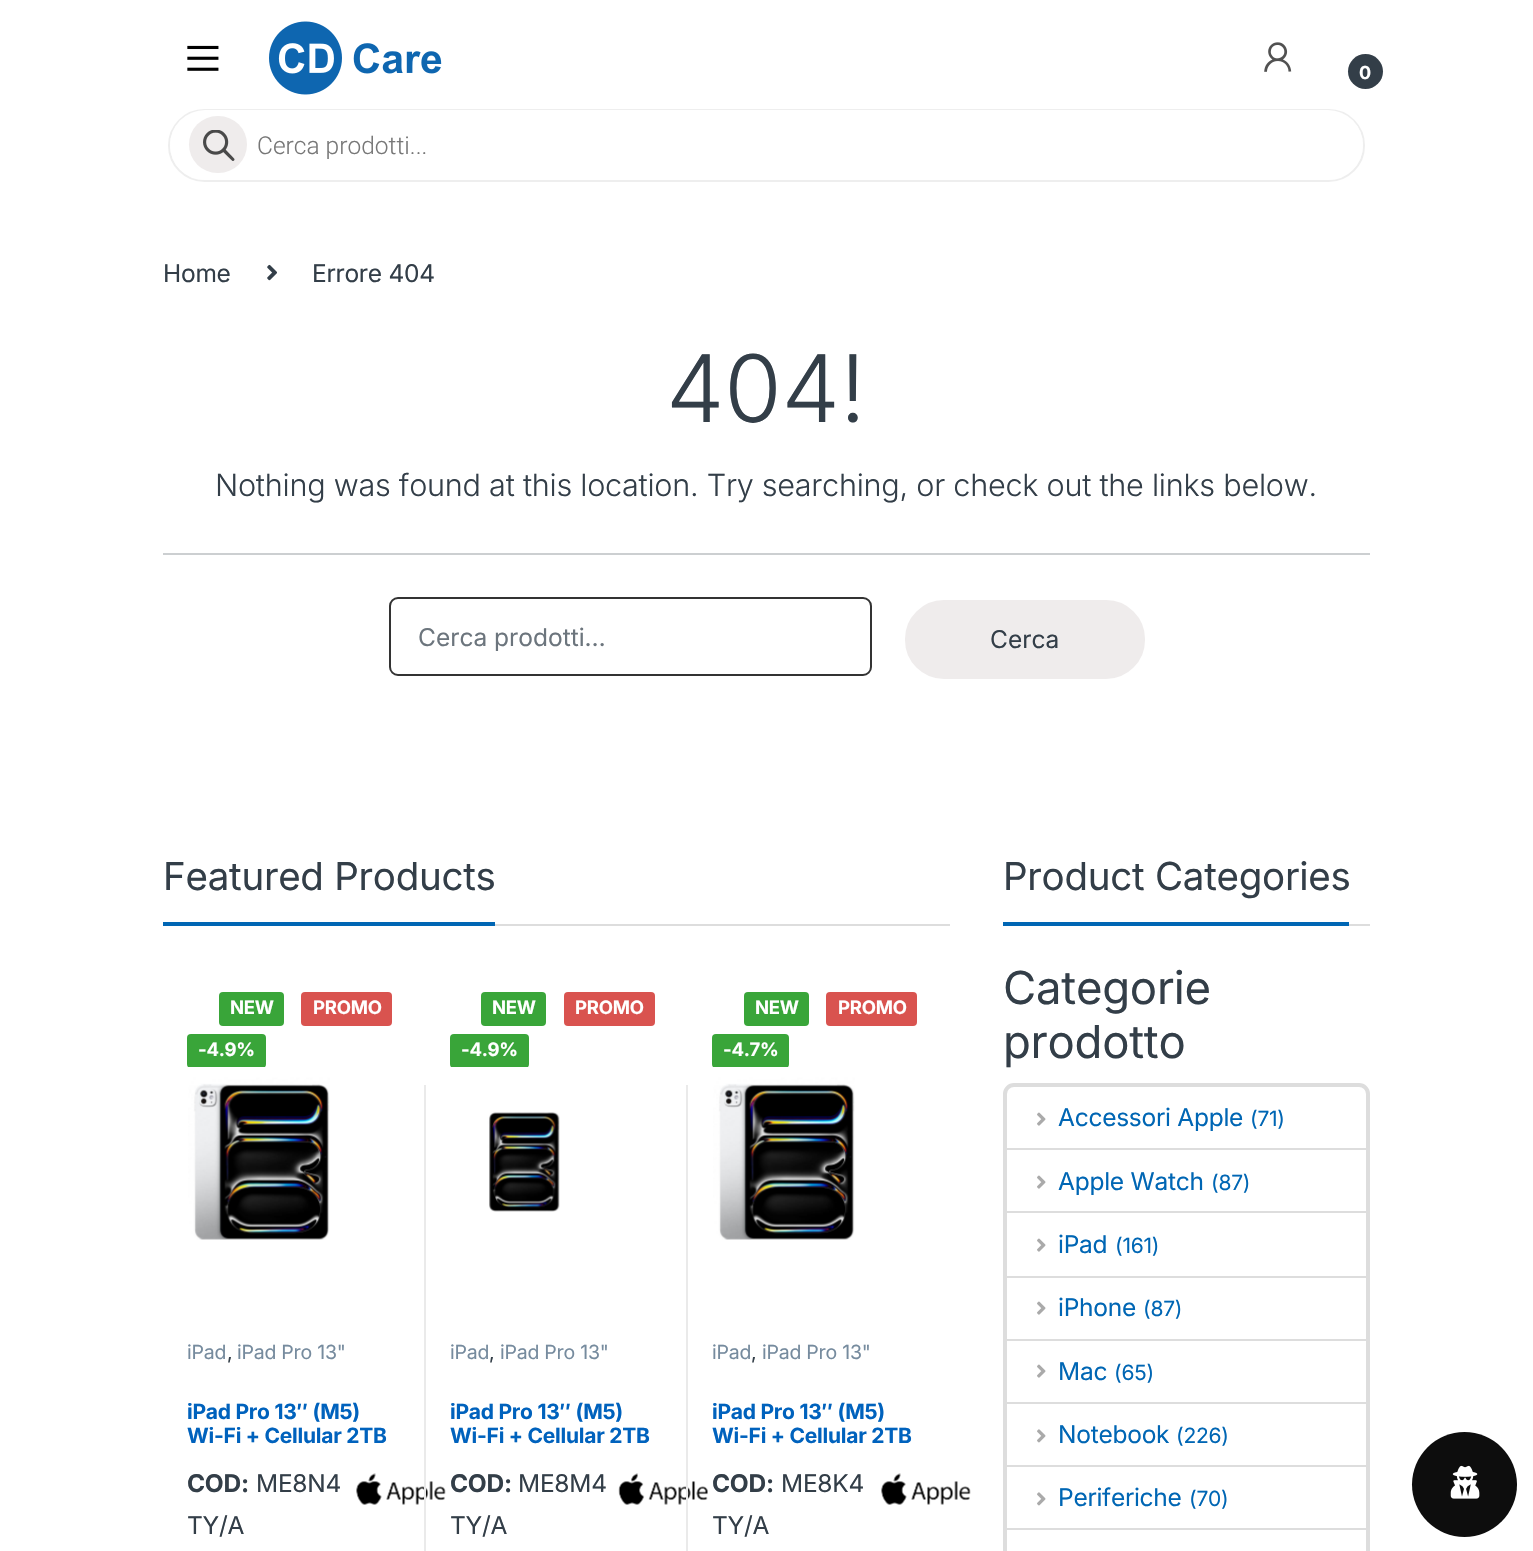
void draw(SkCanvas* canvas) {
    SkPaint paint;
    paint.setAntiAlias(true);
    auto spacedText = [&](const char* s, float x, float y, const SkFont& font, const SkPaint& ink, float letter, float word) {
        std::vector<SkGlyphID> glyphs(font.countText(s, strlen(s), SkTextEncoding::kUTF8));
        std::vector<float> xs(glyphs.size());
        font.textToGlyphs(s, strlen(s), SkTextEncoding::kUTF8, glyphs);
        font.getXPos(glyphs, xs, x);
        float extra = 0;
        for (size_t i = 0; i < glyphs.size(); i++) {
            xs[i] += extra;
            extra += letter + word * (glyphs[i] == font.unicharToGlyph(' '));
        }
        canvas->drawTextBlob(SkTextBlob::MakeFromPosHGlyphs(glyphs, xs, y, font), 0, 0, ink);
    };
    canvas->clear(0xFFFFFFFF);
    canvas->drawImageRect(SkImages::DeferredFromEncodedData(SkData::MakeFromFileName("img1.png")), SkRect::MakeXYWH(187, 45, 32, 26), SkSamplingOptions());
    canvas->drawImageRect(SkImages::DeferredFromEncodedData(SkData::MakeFromFileName("img2.png")), SkRect::MakeXYWH(269, 21, 173, 74), SkSamplingOptions());
    canvas->drawImageRect(SkImages::DeferredFromEncodedData(SkData::MakeFromFileName("img3.png")), SkRect::MakeXYWH(1264, 42, 28, 30), SkSamplingOptions());
    paint.setColor(0xFF333E48);
    canvas->drawCircle(1365.5f, 71.5f, 17.5f, paint);
    SkFont font1(fontMgr->matchFamilyStyle("Inter", SkFontStyle::Bold()), 18);
    font1.setSubpixel(true);
    paint.setColor(0xFFFFFFFF);
    spacedText("0", 1359, 79, font1, paint, -0.25f, 0);
    paint.setStyle(SkPaint::kStroke_Style);
    paint.setStrokeWidth(2);
    paint.setColor(0xFFEEEEEE);
    canvas->drawRoundRect(SkRect::MakeXYWH(169, 110, 1195, 71), 35.5f, 35.5f, paint);
    paint.setStyle(SkPaint::kFill_Style);
    paint.setColor(0xFFFFFFFF);
    canvas->drawRoundRect(SkRect::MakeXYWH(170, 110, 1193, 70), 35, 35, paint);
    paint.setColor(0xFFEFECEC);
    canvas->drawRoundRect(SkRect::MakeXYWH(189, 116, 58, 57), 28.5f, 28.5f, paint);
    canvas->drawImageRect(SkImages::DeferredFromEncodedData(SkData::MakeFromFileName("img4.png")), SkRect::MakeXYWH(203, 130, 32, 31), SkSamplingOptions());
    SkFont font2(fontMgr->matchFamilyStyle("Roboto", SkFontStyle(300, SkFontStyle::kNormal_Width, SkFontStyle::kUpright_Slant)), 24.5f);
    font2.setSubpixel(true);
    paint.setColor(0xFF777777);
    canvas->drawString("Cerca prodotti...", 257, 154, font2, paint);
    SkFont font3(fontMgr->matchFamilyStyle("Inter", SkFontStyle::Normal()), 24.5f);
    font3.setSubpixel(true);
    paint.setColor(0xFF333E48);
    spacedText("Home", 163, 282, font3, paint, -0.25f, 0);
    canvas->drawImageRect(SkImages::DeferredFromEncodedData(SkData::MakeFromFileName("img5.png")), SkRect::MakeXYWH(267, 264, 10, 17), SkSamplingOptions());
    spacedText("Errore 404", 312, 282, font3, paint, -0.25f, 0);
    SkFont font4(fontMgr->matchFamilyStyle("Inter", SkFontStyle(300, SkFontStyle::kNormal_Width, SkFontStyle::kUpright_Slant)), 93);
    font4.setSubpixel(true);
    spacedText("404!", 666, 422, font4, paint, -0.25f, 0);
    SkFont font5(fontMgr->matchFamilyStyle("Inter", SkFontStyle(300, SkFontStyle::kNormal_Width, SkFontStyle::kUpright_Slant)), 30.6f);
    font5.setSubpixel(true);
    spacedText("Nothing was found at this location. Try searching, or check out the links below.", 215, 496, font5, paint, -0.25f, 0);
    paint.setColor(0xFFCCCFD1);
    canvas->drawRect(SkRect::MakeXYWH(163, 553, 1207, 2), paint);
    paint.setStyle(SkPaint::kStroke_Style);
    paint.setColor(0xFF333333);
    canvas->drawRoundRect(SkRect::MakeXYWH(390, 598, 481, 77), 8, 8, paint);
    paint.setStyle(SkPaint::kFill_Style);
    paint.setColor(0xFF6C757D);
    canvas->drawString("Cerca prodotti…", 418, 646, font3, paint);
    paint.setColor(0xFFEFECEC);
    canvas->drawRoundRect(SkRect::MakeXYWH(906, 601, 238, 77), 38, 38, paint);
    paint.setStyle(SkPaint::kStroke_Style);
    canvas->drawRoundRect(SkRect::MakeXYWH(906, 601, 238, 77), 38, 38, paint);
    paint.setStyle(SkPaint::kFill_Style);
    paint.setColor(0xFF333E48);
    canvas->drawString("Cerca", 990, 648, font3, paint);
    paint.setColor(0xFFDDDDDD);
    canvas->drawRect(SkRect::MakeXYWH(495, 924, 455, 2), paint);
    SkFont font6(fontMgr->matchFamilyStyle("Inter", SkFontStyle::Normal()), 38.5f);
    font6.setSubpixel(true);
    paint.setColor(0xFF333E48);
    spacedText("Featured Products", 163, 890, font6, paint, -0.25f, 0);
    paint.setColor(0xFF0066B4);
    canvas->drawRect(SkRect::MakeXYWH(163, 922, 332, 4), paint);
    paint.setColor(0xFF39A539);
    canvas->drawRoundRect(SkRect::MakeXYWH(219, 992, 65, 34), 4, 4, paint);
    SkFont font7(fontMgr->matchFamilyStyle("Inter", SkFontStyle::Bold()), 18.5f);
    font7.setSubpixel(true);
    paint.setColor(0xFFFFFFFF);
    spacedText("NEW", 230, 1014, font7, paint, -0.25f, 0);
    paint.setColor(0xFFD9534F);
    canvas->drawRoundRect(SkRect::MakeXYWH(301, 992, 91, 34), 4, 4, paint);
    paint.setColor(0xFFFFFFFF);
    spacedText("PROMO", 313, 1014, font7, paint, -0.25f, 0);
    paint.setColor(0xFF39A539);
    canvas->drawRoundRect(SkRect::MakeXYWH(187, 1034, 79, 34), 4, 4, paint);
    paint.setColor(0xFFFFFFFF);
    spacedText("-4.9%", 198, 1056, font7, paint, -0.25f, 0);
    canvas->drawImageRect(SkImages::DeferredFromEncodedData(SkData::MakeFromFileName("img6.png")), SkRect::MakeXYWH(188, 1067, 142, 173), SkSamplingOptions());
    SkFont font8(fontMgr->matchFamilyStyle("Inter", SkFontStyle::Normal()), 19.5f);
    font8.setSubpixel(true);
    paint.setColor(0xFF768B9E);
    spacedText("iPad", 187, 1359, font8, paint, -0.25f, 0);
    paint.setColor(0xFF333E48);
    spacedText(",", 227, 1359, font8, paint, -0.25f, 0);
    paint.setColor(0xFF768B9E);
    spacedText("iPad Pro 13\"", 237, 1359, font8, paint, -0.25f, 0);
    SkFont font9(fontMgr->matchFamilyStyle("Inter", SkFontStyle::Bold()), 21);
    font9.setSubpixel(true);
    paint.setColor(0xFF0062BD);
    spacedText("iPad Pro 13″ (M5)", 187, 1419, font9, paint, -0.25f, 0);
    spacedText("Wi-Fi + Cellular 2TB", 187, 1443, font9, paint, -0.25f, 0);
    SkFont font10(fontMgr->matchFamilyStyle("Inter", SkFontStyle::Bold()), 24.5f);
    font10.setSubpixel(true);
    paint.setColor(0xFF333E48);
    spacedText("COD:", 187, 1492, font10, paint, -0.25f, 0);
    spacedText("ME8N4", 256, 1492, font3, paint, -0.25f, 0);
    spacedText("TY/A", 187, 1534, font3, paint, -0.25f, 0);
    canvas->drawImageRect(SkImages::DeferredFromEncodedData(SkData::MakeFromFileName("img7.png")), SkRect::MakeXYWH(356, 1473, 90, 32), SkSamplingOptions());
    paint.setColor(0xFFEAEAEA);
    canvas->drawRect(SkRect::MakeXYWH(424, 1085, 2, 466), paint);
    paint.setColor(0xFF39A539);
    canvas->drawRoundRect(SkRect::MakeXYWH(481, 992, 65, 34), 4, 4, paint);
    paint.setColor(0xFFFFFFFF);
    spacedText("NEW", 492, 1014, font7, paint, -0.25f, 0);
    paint.setColor(0xFFD9534F);
    canvas->drawRoundRect(SkRect::MakeXYWH(564, 992, 91, 34), 4, 4, paint);
    paint.setColor(0xFFFFFFFF);
    spacedText("PROMO", 575, 1014, font7, paint, -0.25f, 0);
    paint.setColor(0xFF39A539);
    canvas->drawRoundRect(SkRect::MakeXYWH(450, 1034, 79, 34), 4, 4, paint);
    paint.setColor(0xFFFFFFFF);
    spacedText("-4.9%", 461, 1056, font7, paint, -0.25f, 0);
    canvas->drawImageRect(SkImages::DeferredFromEncodedData(SkData::MakeFromFileName("img8.png")), SkRect::MakeXYWH(451, 1067, 109, 145), SkSamplingOptions());
    paint.setColor(0xFF768B9E);
    spacedText("iPad", 450, 1359, font8, paint, -0.25f, 0);
    paint.setColor(0xFF333E48);
    spacedText(",", 489, 1359, font8, paint, -0.25f, 0);
    paint.setColor(0xFF768B9E);
    spacedText("iPad Pro 13\"", 500, 1359, font8, paint, -0.25f, 0);
    paint.setColor(0xFF0062BD);
    spacedText("iPad Pro 13″ (M5)", 450, 1419, font9, paint, -0.25f, 0);
    spacedText("Wi-Fi + Cellular 2TB", 450, 1443, font9, paint, -0.25f, 0);
    paint.setColor(0xFF333E48);
    spacedText("COD:", 450, 1492, font10, paint, -0.25f, 0);
    spacedText("ME8M4", 518, 1492, font3, paint, -0.25f, 0);
    spacedText("TY/A", 450, 1534, font3, paint, -0.25f, 0);
    canvas->drawImageRect(SkImages::DeferredFromEncodedData(SkData::MakeFromFileName("img9.png")), SkRect::MakeXYWH(618, 1473, 90, 32), SkSamplingOptions());
    paint.setColor(0xFFEAEAEA);
    canvas->drawRect(SkRect::MakeXYWH(686, 1085, 2, 466), paint);
    paint.setColor(0xFF39A539);
    canvas->drawRoundRect(SkRect::MakeXYWH(744, 992, 65, 34), 4, 4, paint);
    paint.setColor(0xFFFFFFFF);
    spacedText("NEW", 755, 1014, font7, paint, -0.25f, 0);
    paint.setColor(0xFFD9534F);
    canvas->drawRoundRect(SkRect::MakeXYWH(826, 992, 91, 34), 4, 4, paint);
    paint.setColor(0xFFFFFFFF);
    spacedText("PROMO", 838, 1014, font7, paint, -0.25f, 0);
    paint.setColor(0xFF39A539);
    canvas->drawRoundRect(SkRect::MakeXYWH(712, 1034, 77, 34), 4, 4, paint);
    paint.setColor(0xFFFFFFFF);
    spacedText("-4.7%", 723, 1056, font7, paint, -0.25f, 0);
    canvas->drawImageRect(SkImages::DeferredFromEncodedData(SkData::MakeFromFileName("img6.png")), SkRect::MakeXYWH(713, 1067, 142, 173), SkSamplingOptions());
    paint.setColor(0xFF768B9E);
    spacedText("iPad", 712, 1359, font8, paint, -0.25f, 0);
    paint.setColor(0xFF333E48);
    spacedText(",", 751, 1359, font8, paint, -0.25f, 0);
    paint.setColor(0xFF768B9E);
    spacedText("iPad Pro 13\"", 762, 1359, font8, paint, -0.25f, 0);
    paint.setColor(0xFF0062BD);
    spacedText("iPad Pro 13″ (M5)", 712, 1419, font9, paint, -0.25f, 0);
    spacedText("Wi-Fi + Cellular 2TB", 712, 1443, font9, paint, -0.25f, 0);
    paint.setColor(0xFF333E48);
    spacedText("COD:", 712, 1492, font10, paint, -0.25f, 0);
    spacedText("ME8K4", 781, 1492, font3, paint, -0.25f, 0);
    spacedText("TY/A", 712, 1534, font3, paint, -0.25f, 0);
    canvas->drawImageRect(SkImages::DeferredFromEncodedData(SkData::MakeFromFileName("img7.png")), SkRect::MakeXYWH(881, 1473, 90, 32), SkSamplingOptions());
    paint.setColor(0xFFDDDDDD);
    canvas->drawRect(SkRect::MakeXYWH(1349, 924, 21, 2), paint);
    paint.setColor(0xFF333E48);
    spacedText("Product Categories", 1003, 890, font6, paint, -0.25f, 0);
    paint.setColor(0xFF0066B4);
    canvas->drawRect(SkRect::MakeXYWH(1003, 922, 346, 4), paint);
    SkFont font11(fontMgr->matchFamilyStyle("Inter", SkFontStyle::Normal()), 45.5f);
    font11.setSubpixel(true);
    paint.setColor(0xFF333E48);
    spacedText("Categorie", 1003, 1004, font11, paint, -0.25f, 0);
    spacedText("prodotto", 1003, 1058, font11, paint, -0.25f, 0);
    paint.setStyle(SkPaint::kStroke_Style);
    paint.setStrokeWidth(4);
    paint.setColor(0xFFDDDDDD);
    canvas->drawRoundRect(SkRect::MakeXYWH(1005, 1085, 363, 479), 9, 9, paint);
    canvas->drawImageRect(SkImages::DeferredFromEncodedData(SkData::MakeFromFileName("img10.png")), SkRect::MakeXYWH(1037, 1112, 9, 14), SkSamplingOptions());
    paint.setStyle(SkPaint::kFill_Style);
    paint.setColor(0xFF0066B4);
    spacedText("Accessori Apple", 1058, 1126, font3, paint, -0.25f, 0);
    SkFont font12(fontMgr->matchFamilyStyle("Inter", SkFontStyle::Normal()), 21);
    font12.setSubpixel(true);
    spacedText("(71)", 1250, 1126, font12, paint, -0.25f, 0);
    paint.setColor(0xFFDDDDDD);
    canvas->drawRect(SkRect::MakeXYWH(1006, 1148, 361, 2), paint);
    canvas->drawImageRect(SkImages::DeferredFromEncodedData(SkData::MakeFromFileName("img10.png")), SkRect::MakeXYWH(1037, 1175, 9, 14), SkSamplingOptions());
    paint.setColor(0xFF0066B4);
    spacedText("Apple Watch", 1058, 1190, font3, paint, -0.25f, 0);
    spacedText("(87)", 1211, 1190, font12, paint, -0.25f, 0);
    paint.setColor(0xFFDDDDDD);
    canvas->drawRect(SkRect::MakeXYWH(1006, 1211, 361, 2), paint);
    canvas->drawImageRect(SkImages::DeferredFromEncodedData(SkData::MakeFromFileName("img10.png")), SkRect::MakeXYWH(1037, 1238, 9, 14), SkSamplingOptions());
    paint.setColor(0xFF0066B4);
    spacedText("iPad", 1058, 1253, font3, paint, -0.25f, 0);
    spacedText("(161)", 1115, 1253, font12, paint, -0.25f, 0);
    paint.setColor(0xFFDDDDDD);
    canvas->drawRect(SkRect::MakeXYWH(1006, 1276, 361, 2), paint);
    canvas->drawImageRect(SkImages::DeferredFromEncodedData(SkData::MakeFromFileName("img10.png")), SkRect::MakeXYWH(1037, 1301, 9, 14), SkSamplingOptions());
    paint.setColor(0xFF0066B4);
    spacedText("iPhone", 1058, 1316, font3, paint, -0.25f, 0);
    spacedText("(87)", 1143, 1316, font12, paint, -0.25f, 0);
    paint.setColor(0xFFDDDDDD);
    canvas->drawRect(SkRect::MakeXYWH(1006, 1339, 361, 2), paint);
    canvas->drawImageRect(SkImages::DeferredFromEncodedData(SkData::MakeFromFileName("img10.png")), SkRect::MakeXYWH(1037, 1364, 9, 14), SkSamplingOptions());
    paint.setColor(0xFF0066B4);
    spacedText("Mac", 1058, 1380, font3, paint, -0.25f, 0);
    spacedText("(65)", 1114, 1380, font12, paint, -0.25f, 0);
    paint.setColor(0xFFDDDDDD);
    canvas->drawRect(SkRect::MakeXYWH(1006, 1402, 361, 2), paint);
    canvas->drawImageRect(SkImages::DeferredFromEncodedData(SkData::MakeFromFileName("img11.png")), SkRect::MakeXYWH(1037, 1429, 9, 14), SkSamplingOptions());
    paint.setColor(0xFF0066B4);
    spacedText("Notebook", 1058, 1443, font3, paint, -0.25f, 0);
    spacedText("(226)", 1176, 1443, font12, paint, -0.25f, 0);
    paint.setColor(0xFFDDDDDD);
    canvas->drawRect(SkRect::MakeXYWH(1006, 1465, 361, 2), paint);
    canvas->drawImageRect(SkImages::DeferredFromEncodedData(SkData::MakeFromFileName("img11.png")), SkRect::MakeXYWH(1037, 1492, 9, 14), SkSamplingOptions());
    paint.setColor(0xFF0066B4);
    spacedText("Periferiche", 1058, 1506, font3, paint, -0.25f, 0);
    spacedText("(70)", 1189, 1506, font12, paint, -0.25f, 0);
    paint.setColor(0xFFDDDDDD);
    canvas->drawRect(SkRect::MakeXYWH(1006, 1528, 361, 2), paint);
    paint.setColor(0xFF0D0D0D);
    canvas->drawCircle(1464.5f, 1484.5f, 52.5f, paint);
    canvas->drawImageRect(SkImages::DeferredFromEncodedData(SkData::MakeFromFileName("img12.png")), SkRect::MakeXYWH(1450, 1465, 30, 34), SkSamplingOptions());
}
